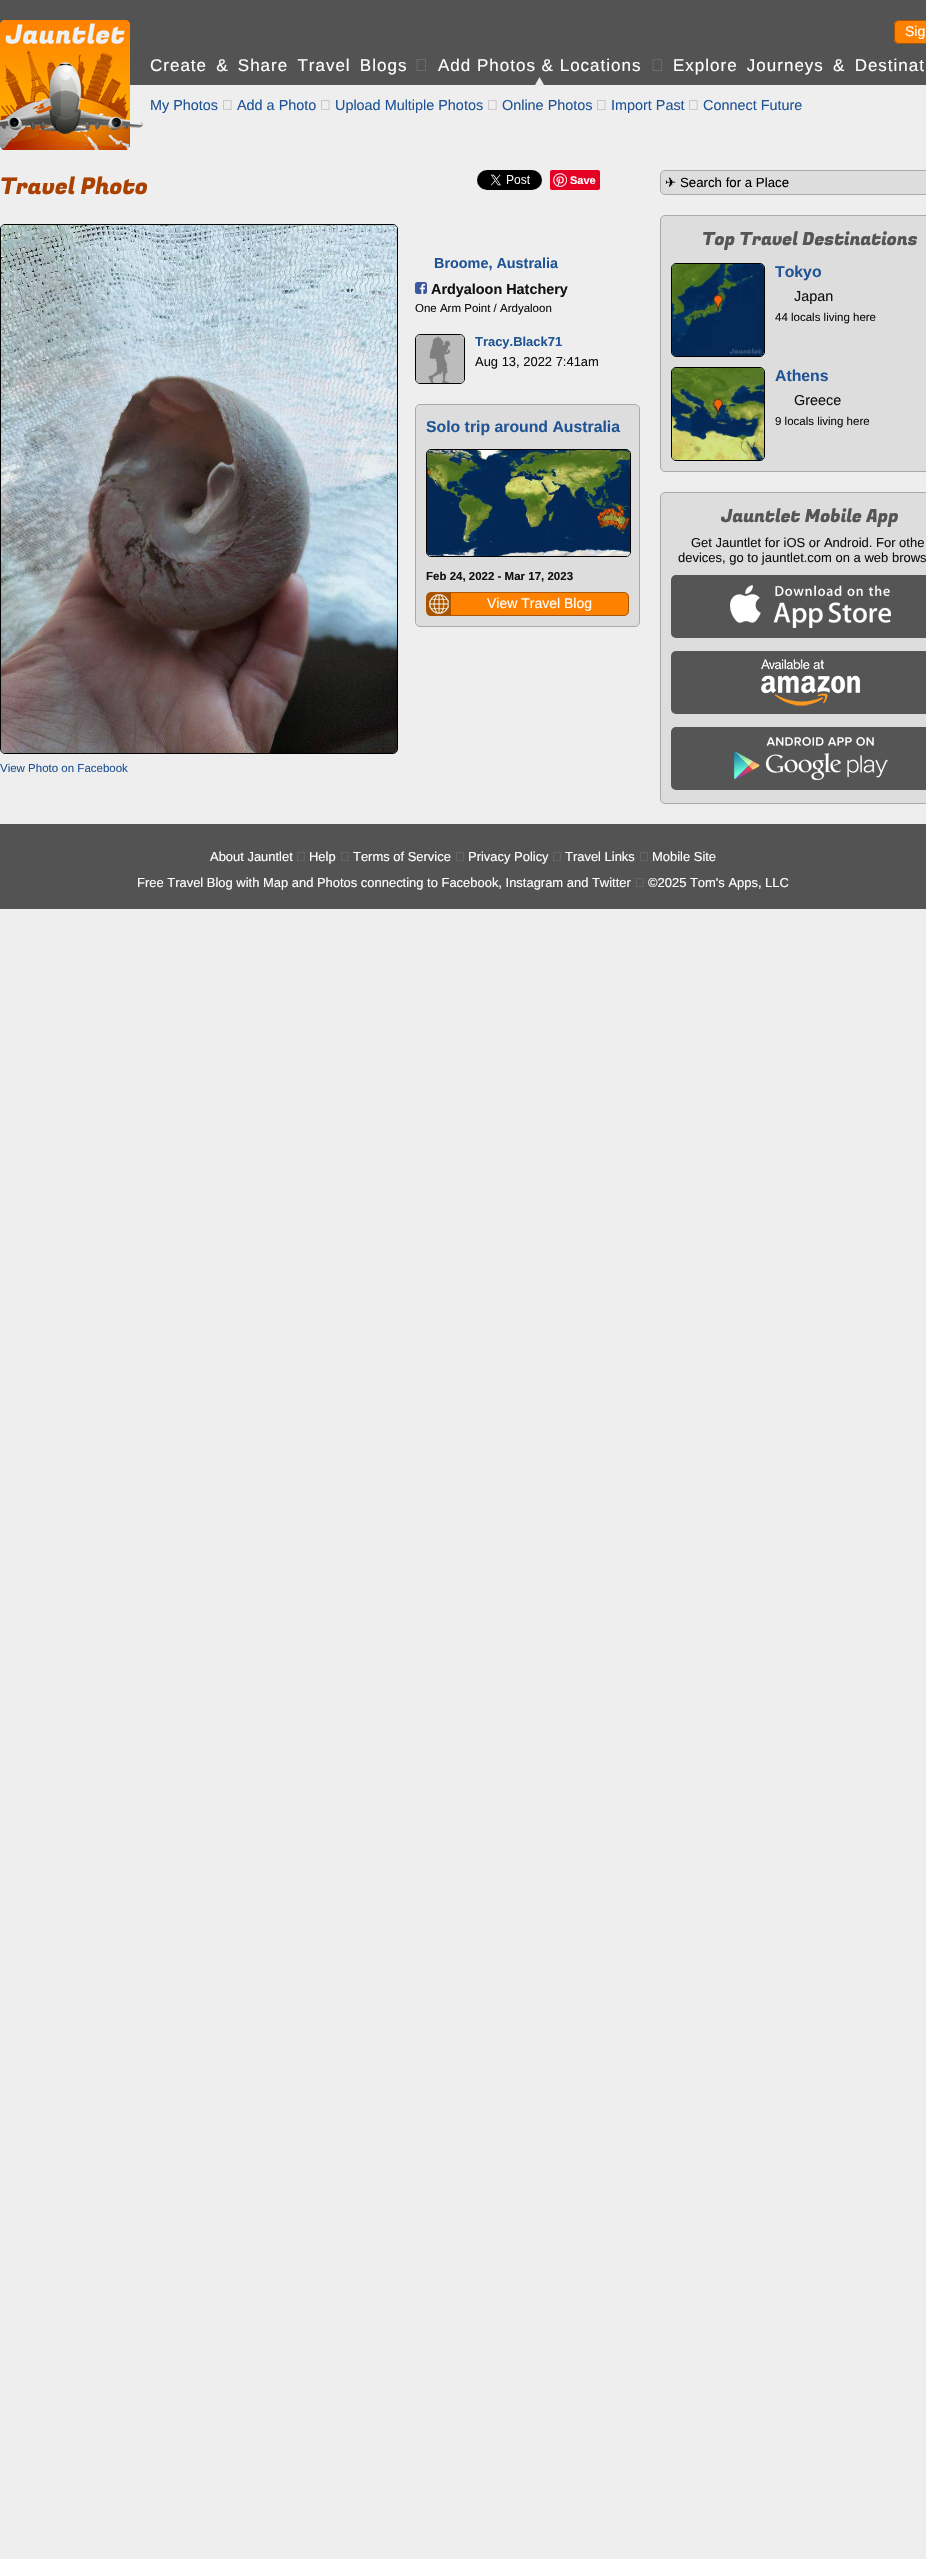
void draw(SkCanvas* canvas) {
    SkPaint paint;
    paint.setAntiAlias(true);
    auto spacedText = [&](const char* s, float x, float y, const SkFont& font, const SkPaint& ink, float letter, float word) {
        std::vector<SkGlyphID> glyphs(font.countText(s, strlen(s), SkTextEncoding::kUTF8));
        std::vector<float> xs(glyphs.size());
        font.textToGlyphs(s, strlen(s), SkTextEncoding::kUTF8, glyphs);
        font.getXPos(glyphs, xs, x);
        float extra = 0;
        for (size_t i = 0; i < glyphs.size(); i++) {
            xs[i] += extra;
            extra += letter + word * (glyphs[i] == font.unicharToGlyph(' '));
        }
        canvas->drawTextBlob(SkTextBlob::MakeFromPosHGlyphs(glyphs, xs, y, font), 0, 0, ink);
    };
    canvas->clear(0xFFEEEEEE);
    paint.setColor(0xFF535353);
    canvas->drawRect(SkRect::MakeXYWH(0, 0, 926, 85), paint);
    canvas->drawImageRect(SkImages::DeferredFromEncodedData(SkData::MakeFromFileName("img1.png")), SkRect::MakeXYWH(0, 20, 130, 65), SkSamplingOptions());
    canvas->drawImageRect(SkImages::DeferredFromEncodedData(SkData::MakeFromFileName("img2.png")), SkRect::MakeXYWH(894, 20, 32, 24), SkSamplingOptions());
    paint.setStyle(SkPaint::kStroke_Style);
    paint.setStrokeWidth(1);
    paint.setColor(0xFFA85400);
    canvas->drawRoundRect(SkRect::MakeXYWH(894.5f, 20.5f, 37, 23), 4.5f, 4.5f, paint);
    SkFont font1(fontMgr->matchFamilyStyle("Liberation Sans", SkFontStyle::Normal()), 14);
    font1.setSubpixel(true);
    paint.setStyle(SkPaint::kFill_Style);
    paint.setColor(0xFFFFFFFF);
    canvas->drawString("Sig", 905, 36, font1, paint);
    SkFont font2(fontMgr->matchFamilyStyle("Liberation Sans", SkFontStyle::Normal()), 17);
    font2.setSubpixel(true);
    spacedText("Create & Share Travel Blogs", 150, 71, font2, paint, 1, 3.5f);
    canvas->drawImageRect(SkImages::DeferredFromEncodedData(SkData::MakeFromFileName("img3.png")), SkRect::MakeXYWH(416, 59, 10, 12), SkSamplingOptions());
    canvas->drawImageRect(SkImages::DeferredFromEncodedData(SkData::MakeFromFileName("img4.png")), SkRect::MakeXYWH(535, 77, 9, 8), SkSamplingOptions());
    spacedText("Add Photos & Locations", 438, 71, font2, paint, 1, 0);
    canvas->drawImageRect(SkImages::DeferredFromEncodedData(SkData::MakeFromFileName("img3.png")), SkRect::MakeXYWH(652, 59, 10, 12), SkSamplingOptions());
    spacedText("Explore Journeys & Destinat", 673, 71, font2, paint, 1, 3.5f);
    canvas->drawImageRect(SkImages::DeferredFromEncodedData(SkData::MakeFromFileName("img5.png")), SkRect::MakeXYWH(130, 121, 13, 9), SkSamplingOptions());
    canvas->drawImageRect(SkImages::DeferredFromEncodedData(SkData::MakeFromFileName("img6.png")), SkRect::MakeXYWH(0, 85, 130, 65), SkSamplingOptions());
    SkFont font3(fontMgr->matchFamilyStyle("Liberation Sans", SkFontStyle::Normal()), 14.4f);
    font3.setSubpixel(true);
    paint.setColor(0xFF205495);
    canvas->drawString("My Photos", 150, 110, font3, paint);
    canvas->drawImageRect(SkImages::DeferredFromEncodedData(SkData::MakeFromFileName("img7.png")), SkRect::MakeXYWH(223, 100, 9, 10), SkSamplingOptions());
    canvas->drawString("Add a Photo", 237, 110, font3, paint);
    canvas->drawImageRect(SkImages::DeferredFromEncodedData(SkData::MakeFromFileName("img7.png")), SkRect::MakeXYWH(321, 100, 9, 10), SkSamplingOptions());
    canvas->drawString("Upload Multiple Photos", 335, 110, font3, paint);
    canvas->drawImageRect(SkImages::DeferredFromEncodedData(SkData::MakeFromFileName("img7.png")), SkRect::MakeXYWH(488, 100, 9, 10), SkSamplingOptions());
    canvas->drawString("Online Photos", 502, 110, font3, paint);
    canvas->drawImageRect(SkImages::DeferredFromEncodedData(SkData::MakeFromFileName("img7.png")), SkRect::MakeXYWH(597, 100, 9, 10), SkSamplingOptions());
    canvas->drawString("Import Past", 611, 110, font3, paint);
    canvas->drawImageRect(SkImages::DeferredFromEncodedData(SkData::MakeFromFileName("img7.png")), SkRect::MakeXYWH(689, 100, 9, 10), SkSamplingOptions());
    canvas->drawString("Connect Future", 703, 110, font3, paint);
    SkFont font4(fontMgr->matchFamilyStyle("Fugaz One", SkFontStyle::Normal()), 23);
    font4.setSubpixel(true);
    paint.setColor(0xFFAA4100);
    canvas->drawString("Travel Photo", 0, 194, font4, paint);
    canvas->drawImageRect(SkImages::DeferredFromEncodedData(SkData::MakeFromFileName("img8.png")), SkRect::MakeXYWH(477, 170, 65, 20), SkSamplingOptions());
    paint.setColor(0xFFE60023);
    canvas->drawRoundRect(SkRect::MakeXYWH(550, 170, 50, 20), 2, 2, paint);
    canvas->drawImageRect(SkImages::DeferredFromEncodedData(SkData::MakeFromFileName("img9.png")), SkRect::MakeXYWH(553, 173, 14, 14), SkSamplingOptions());
    SkFont font5(fontMgr->matchFamilyStyle("Liberation Sans", SkFontStyle::Bold()), 11);
    font5.setSubpixel(true);
    paint.setColor(0xFFFFFFFF);
    canvas->drawString("Save", 570, 184, font5, paint);
    SkFont font6(fontMgr->matchFamilyStyle("Liberation Sans", SkFontStyle::Bold()), 14.4f);
    font6.setSubpixel(true);
    paint.setColor(0xFF205495);
    canvas->drawString("Broome, Australia", 434, 268, font6, paint);
    canvas->drawImageRect(SkImages::DeferredFromEncodedData(SkData::MakeFromFileName("img10.png")), SkRect::MakeXYWH(415, 282, 12, 12), SkSamplingOptions());
    paint.setColor(0xFF111111);
    canvas->drawString("Ardyaloon Hatchery", 431, 294, font6, paint);
    SkFont font7(fontMgr->matchFamilyStyle("Liberation Sans", SkFontStyle::Normal()), 11.5f);
    font7.setSubpixel(true);
    canvas->drawString("One Arm Point / Ardyaloon", 415, 312, font7, paint);
    paint.setStyle(SkPaint::kStroke_Style);
    paint.setColor(0xFF000000);
    canvas->drawRoundRect(SkRect::MakeXYWH(415.5f, 334.5f, 49, 49), 4.5f, 4.5f, paint);
    canvas->drawImageRect(SkImages::DeferredFromEncodedData(SkData::MakeFromFileName("img11.png")), SkRect::MakeXYWH(416, 335, 48, 48), SkSamplingOptions());
    SkFont font8(fontMgr->matchFamilyStyle("Liberation Sans", SkFontStyle::Bold()), 12.95f);
    font8.setSubpixel(true);
    paint.setStyle(SkPaint::kFill_Style);
    paint.setColor(0xFF205495);
    canvas->drawString("Tracy.Black71", 475, 346, font8, paint);
    SkFont font9(fontMgr->matchFamilyStyle("Liberation Sans", SkFontStyle::Normal()), 12.95f);
    font9.setSubpixel(true);
    paint.setColor(0xFF111111);
    canvas->drawString("Aug 13, 2022 7:41am", 475, 366, font9, paint);
    paint.setColor(0xFFDDDDDD);
    canvas->drawRoundRect(SkRect::MakeXYWH(415.5f, 404.5f, 224, 222), 4.5f, 4.5f, paint);
    paint.setStyle(SkPaint::kStroke_Style);
    paint.setColor(0xFFAAAAAA);
    canvas->drawRoundRect(SkRect::MakeXYWH(415.5f, 404.5f, 224, 222), 4.5f, 4.5f, paint);
    SkFont font10(fontMgr->matchFamilyStyle("Liberation Sans", SkFontStyle::Bold()), 15.8f);
    font10.setSubpixel(true);
    paint.setStyle(SkPaint::kFill_Style);
    paint.setColor(0xFF205495);
    canvas->drawString("Solo trip around Australia", 426, 432, font10, paint);
    paint.setStyle(SkPaint::kStroke_Style);
    paint.setColor(0xFF000000);
    canvas->drawRoundRect(SkRect::MakeXYWH(426.5f, 449.5f, 204, 107), 4.5f, 4.5f, paint);
    canvas->drawImageRect(SkImages::DeferredFromEncodedData(SkData::MakeFromFileName("img12.png")), SkRect::MakeXYWH(427, 450, 203, 106), SkSamplingOptions());
    SkFont font11(fontMgr->matchFamilyStyle("Liberation Sans", SkFontStyle::Bold()), 11.5f);
    font11.setSubpixel(true);
    paint.setStyle(SkPaint::kFill_Style);
    paint.setColor(0xFF111111);
    canvas->drawString("Feb 24, 2022 - Mar 17, 2023", 426, 580, font11, paint);
    canvas->drawImageRect(SkImages::DeferredFromEncodedData(SkData::MakeFromFileName("img13.png")), SkRect::MakeXYWH(427, 592, 202, 24), SkSamplingOptions());
    paint.setStyle(SkPaint::kStroke_Style);
    paint.setColor(0xFFA85400);
    canvas->drawRoundRect(SkRect::MakeXYWH(426.5f, 592.5f, 202, 23), 4.5f, 4.5f, paint);
    canvas->drawImageRect(SkImages::DeferredFromEncodedData(SkData::MakeFromFileName("img14.png")), SkRect::MakeXYWH(429, 594, 20, 20), SkSamplingOptions());
    paint.setStyle(SkPaint::kFill_Style);
    paint.setColor(0xFFFFFFFF);
    canvas->drawString("View Travel Blog", 487, 608, font1, paint);
    paint.setStyle(SkPaint::kStroke_Style);
    paint.setColor(0xFF000000);
    canvas->drawRoundRect(SkRect::MakeXYWH(0.5f, 224.5f, 397, 529), 4.5f, 4.5f, paint);
    canvas->drawImageRect(SkImages::DeferredFromEncodedData(SkData::MakeFromFileName("img15.png")), SkRect::MakeXYWH(1, 225, 396, 528), SkSamplingOptions());
    paint.setStyle(SkPaint::kFill_Style);
    paint.setColor(0xFF205495);
    canvas->drawString("View Photo on Facebook", 0, 772, font7, paint);
    paint.setColor(0xFFDDDDDD);
    canvas->drawRoundRect(SkRect::MakeXYWH(660.5f, 170.5f, 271, 24), 4.5f, 4.5f, paint);
    paint.setStyle(SkPaint::kStroke_Style);
    paint.setColor(0xFFAAAAAA);
    canvas->drawRoundRect(SkRect::MakeXYWH(660.5f, 170.5f, 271, 24), 4.5f, 4.5f, paint);
    SkFont font12(fontMgr->matchFamilyStyle("DejaVu Sans", SkFontStyle::Normal()), 13.25f);
    font12.setSubpixel(true);
    paint.setStyle(SkPaint::kFill_Style);
    paint.setColor(0xFF000000);
    canvas->drawString("✈", 665, 187, font12, paint);
    SkFont font13(fontMgr->matchFamilyStyle("Liberation Sans", SkFontStyle::Normal()), 13.25f);
    font13.setSubpixel(true);
    canvas->drawString("Search for a Place", 680, 187, font13, paint);
    paint.setColor(0xFFDDDDDD);
    canvas->drawRoundRect(SkRect::MakeXYWH(660.5f, 215.5f, 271, 256), 4.5f, 4.5f, paint);
    paint.setStyle(SkPaint::kStroke_Style);
    paint.setColor(0xFFAAAAAA);
    canvas->drawRoundRect(SkRect::MakeXYWH(660.5f, 215.5f, 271, 256), 4.5f, 4.5f, paint);
    SkFont font14(fontMgr->matchFamilyStyle("Fugaz One", SkFontStyle::Normal()), 18);
    font14.setSubpixel(true);
    paint.setStyle(SkPaint::kFill_Style);
    paint.setColor(0xFF555555);
    canvas->drawString("Top Travel Destinations", 702, 245, font14, paint);
    paint.setStyle(SkPaint::kStroke_Style);
    paint.setColor(0xFF000000);
    canvas->drawRoundRect(SkRect::MakeXYWH(671.5f, 263.5f, 93, 93), 4.5f, 4.5f, paint);
    canvas->drawImageRect(SkImages::DeferredFromEncodedData(SkData::MakeFromFileName("img16.png")), SkRect::MakeXYWH(672, 264, 92, 92), SkSamplingOptions());
    paint.setStyle(SkPaint::kFill_Style);
    paint.setColor(0xFF205495);
    canvas->drawString("Tokyo", 775, 277, font10, paint);
    paint.setColor(0xFF111111);
    canvas->drawString("Japan", 794, 301, font3, paint);
    canvas->drawString("44 locals living here", 775, 321, font7, paint);
    paint.setStyle(SkPaint::kStroke_Style);
    paint.setColor(0xFF000000);
    canvas->drawRoundRect(SkRect::MakeXYWH(671.5f, 367.5f, 93, 93), 4.5f, 4.5f, paint);
    canvas->drawImageRect(SkImages::DeferredFromEncodedData(SkData::MakeFromFileName("img17.png")), SkRect::MakeXYWH(672, 368, 92, 92), SkSamplingOptions());
    paint.setStyle(SkPaint::kFill_Style);
    paint.setColor(0xFF205495);
    canvas->drawString("Athens", 775, 381, font10, paint);
    paint.setColor(0xFF111111);
    canvas->drawString("Greece", 794, 405, font3, paint);
    canvas->drawString("9 locals living here", 775, 425, font7, paint);
    paint.setColor(0xFFDDDDDD);
    canvas->drawRoundRect(SkRect::MakeXYWH(660.5f, 492.5f, 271, 311), 4.5f, 4.5f, paint);
    paint.setStyle(SkPaint::kStroke_Style);
    paint.setColor(0xFFAAAAAA);
    canvas->drawRoundRect(SkRect::MakeXYWH(660.5f, 492.5f, 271, 311), 4.5f, 4.5f, paint);
    paint.setStyle(SkPaint::kFill_Style);
    paint.setColor(0xFF555555);
    canvas->drawString("Jauntlet Mobile App", 721, 522, font14, paint);
    SkFont font15(fontMgr->matchFamilyStyle("Liberation Sans", SkFontStyle::Normal()), 13);
    font15.setSubpixel(true);
    paint.setColor(0xFF111111);
    canvas->drawString("Get Jauntlet for iOS or Android. For othe", 691, 547, font15, paint);
    canvas->drawString("devices, go to jauntlet.com on a web brows", 678, 562, font15, paint);
    canvas->drawImageRect(SkImages::DeferredFromEncodedData(SkData::MakeFromFileName("img18.png")), SkRect::MakeXYWH(671, 575, 255, 63), SkSamplingOptions());
    canvas->drawImageRect(SkImages::DeferredFromEncodedData(SkData::MakeFromFileName("img19.png")), SkRect::MakeXYWH(671, 651, 255, 63), SkSamplingOptions());
    canvas->drawImageRect(SkImages::DeferredFromEncodedData(SkData::MakeFromFileName("img20.png")), SkRect::MakeXYWH(671, 727, 255, 63), SkSamplingOptions());
    paint.setColor(0xFF535353);
    canvas->drawRect(SkRect::MakeXYWH(0, 824, 926, 85), paint);
    paint.setColor(0xFFFFFFFF);
    canvas->drawString("About Jauntlet", 210, 861, font9, paint);
    canvas->drawImageRect(SkImages::DeferredFromEncodedData(SkData::MakeFromFileName("img21.png")), SkRect::MakeXYWH(297, 852, 8, 9), SkSamplingOptions());
    canvas->drawString("Help", 309, 861, font9, paint);
    canvas->drawImageRect(SkImages::DeferredFromEncodedData(SkData::MakeFromFileName("img21.png")), SkRect::MakeXYWH(341, 852, 8, 9), SkSamplingOptions());
    canvas->drawString("Terms of Service", 353, 861, font9, paint);
    canvas->drawImageRect(SkImages::DeferredFromEncodedData(SkData::MakeFromFileName("img21.png")), SkRect::MakeXYWH(456, 852, 8, 9), SkSamplingOptions());
    canvas->drawString("Privacy Policy", 468, 861, font9, paint);
    canvas->drawImageRect(SkImages::DeferredFromEncodedData(SkData::MakeFromFileName("img21.png")), SkRect::MakeXYWH(553, 852, 8, 9), SkSamplingOptions());
    canvas->drawString("Travel Links", 565, 861, font9, paint);
    canvas->drawImageRect(SkImages::DeferredFromEncodedData(SkData::MakeFromFileName("img21.png")), SkRect::MakeXYWH(640, 852, 8, 9), SkSamplingOptions());
    canvas->drawString("Mobile Site", 652, 861, font9, paint);
    canvas->drawString("Free Travel Blog with Map and Photos connecting to Facebook, Instagram and Twitter", 137, 887, font9, paint);
    canvas->drawImageRect(SkImages::DeferredFromEncodedData(SkData::MakeFromFileName("img21.png")), SkRect::MakeXYWH(636, 878, 8, 9), SkSamplingOptions());
    canvas->drawString("©2025 Tom's Apps, LLC", 648, 887, font9, paint);
}
